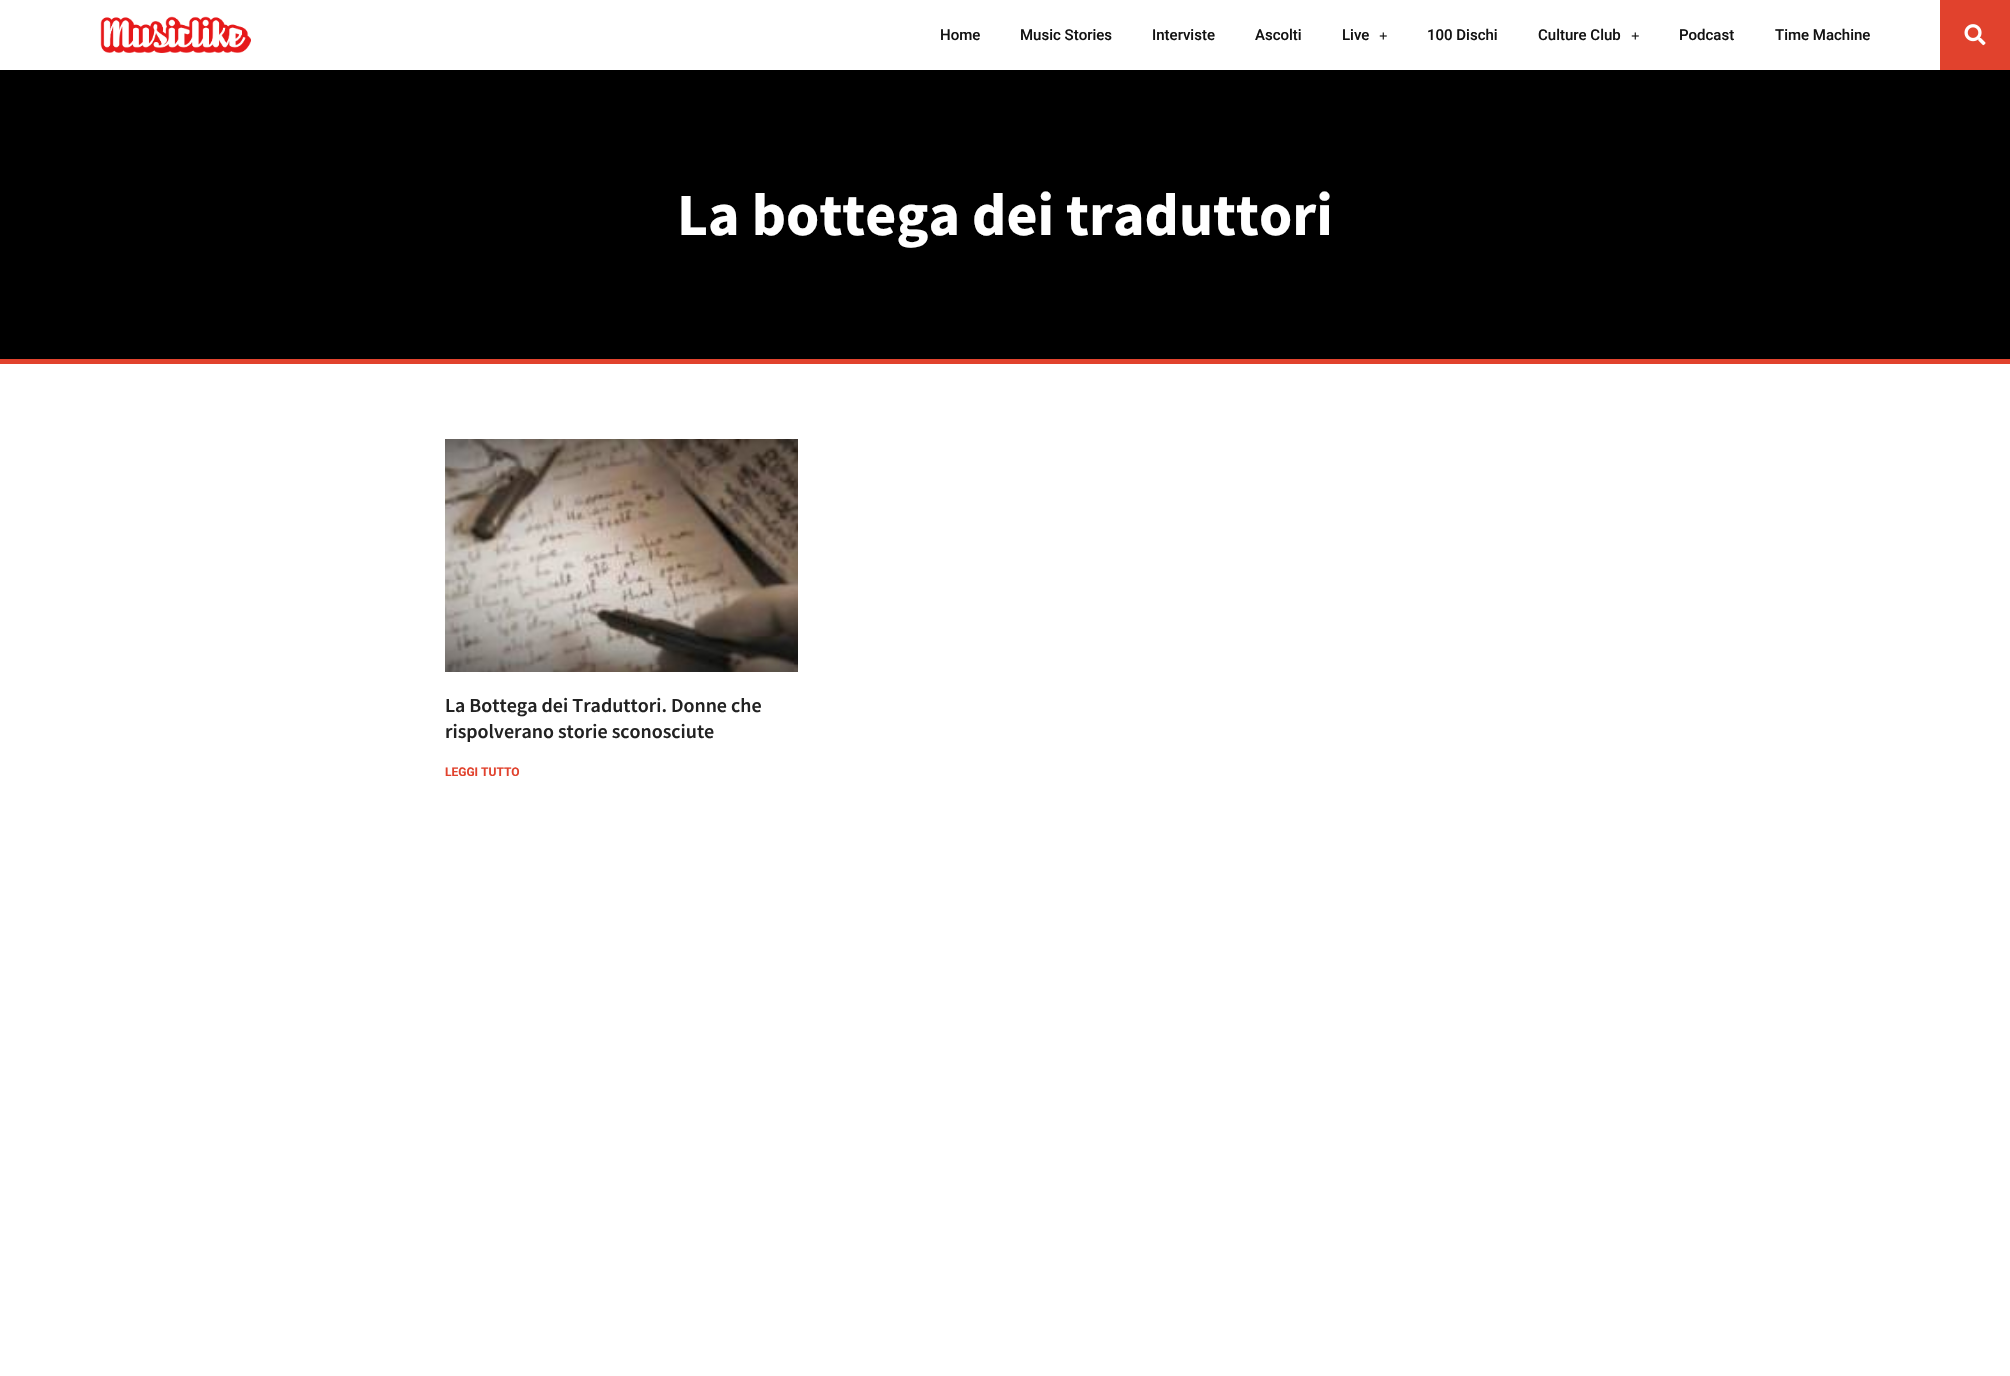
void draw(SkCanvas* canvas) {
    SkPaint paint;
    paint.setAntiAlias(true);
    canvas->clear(0xFFFFFFFF);
    canvas->drawImageRect(SkImages::DeferredFromEncodedData(SkData::MakeFromFileName("img1.png")), SkRect::MakeXYWH(100, 16, 151, 37), SkSamplingOptions());
    SkFont font1(fontMgr->matchFamilyStyle("Roboto", SkFontStyle(500, SkFontStyle::kNormal_Width, SkFontStyle::kUpright_Slant)), 15);
    font1.setSubpixel(true);
    paint.setColor(0xFF131313);
    canvas->drawString("Home", 940, 40, font1, paint);
    canvas->drawString("Music Stories", 1020, 40, font1, paint);
    canvas->drawString("Interviste", 1152, 40, font1, paint);
    canvas->drawString("Ascolti", 1255, 40, font1, paint);
    canvas->drawString("Live", 1342, 40, font1, paint);
    SkFont font2(fontMgr->matchFamilyStyle("Liberation Serif", SkFontStyle::Bold()), 15);
    font2.setSubpixel(true);
    canvas->drawString("+", 1379, 41, font2, paint);
    canvas->drawString("100 Dischi", 1427, 40, font1, paint);
    canvas->drawString("Culture Club", 1538, 40, font1, paint);
    canvas->drawString("+", 1631, 41, font2, paint);
    canvas->drawString("Podcast", 1679, 40, font1, paint);
    canvas->drawString("Time Machine", 1775, 40, font1, paint);
    paint.setColor(0xFFE1422D);
    canvas->drawRect(SkRect::MakeXYWH(1940, 0, 70, 70), paint);
    canvas->drawImageRect(SkImages::DeferredFromEncodedData(SkData::MakeFromFileName("img2.png")), SkRect::MakeXYWH(1964, 24, 22, 22), SkSamplingOptions());
    paint.setColor(0xFF000000);
    canvas->drawRect(SkRect::MakeXYWH(0, 70, 2010, 289), paint);
    paint.setColor(0xFFE1422D);
    canvas->drawRect(SkRect::MakeXYWH(0, 359, 2010, 5), paint);
    SkFont font3(fontMgr->matchFamilyStyle("Source Sans Pro", SkFontStyle::Bold()), 60);
    font3.setSubpixel(true);
    paint.setColor(0xFFFFFFFF);
    canvas->drawString("La bottega dei traduttori", 677, 235, font3, paint);
    canvas->drawImageRect(SkImages::DeferredFromEncodedData(SkData::MakeFromFileName("img3.png")), SkRect::MakeXYWH(445, 439, 353, 233), SkSamplingOptions());
    SkFont font4(fontMgr->matchFamilyStyle("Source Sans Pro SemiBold", SkFontStyle(600, SkFontStyle::kNormal_Width, SkFontStyle::kUpright_Slant)), 20);
    font4.setSubpixel(true);
    paint.setColor(0xFF222222);
    canvas->drawString("La Bottega dei Traduttori. Donne che", 445, 712, font4, paint);
    canvas->drawString("rispolverano storie sconosciute", 445, 738, font4, paint);
    SkFont font5(fontMgr->matchFamilyStyle("Roboto", SkFontStyle::Bold()), 12);
    font5.setSubpixel(true);
    paint.setColor(0xFFE1422D);
    canvas->drawString("LEGGI TUTTO", 445, 776, font5, paint);
}
